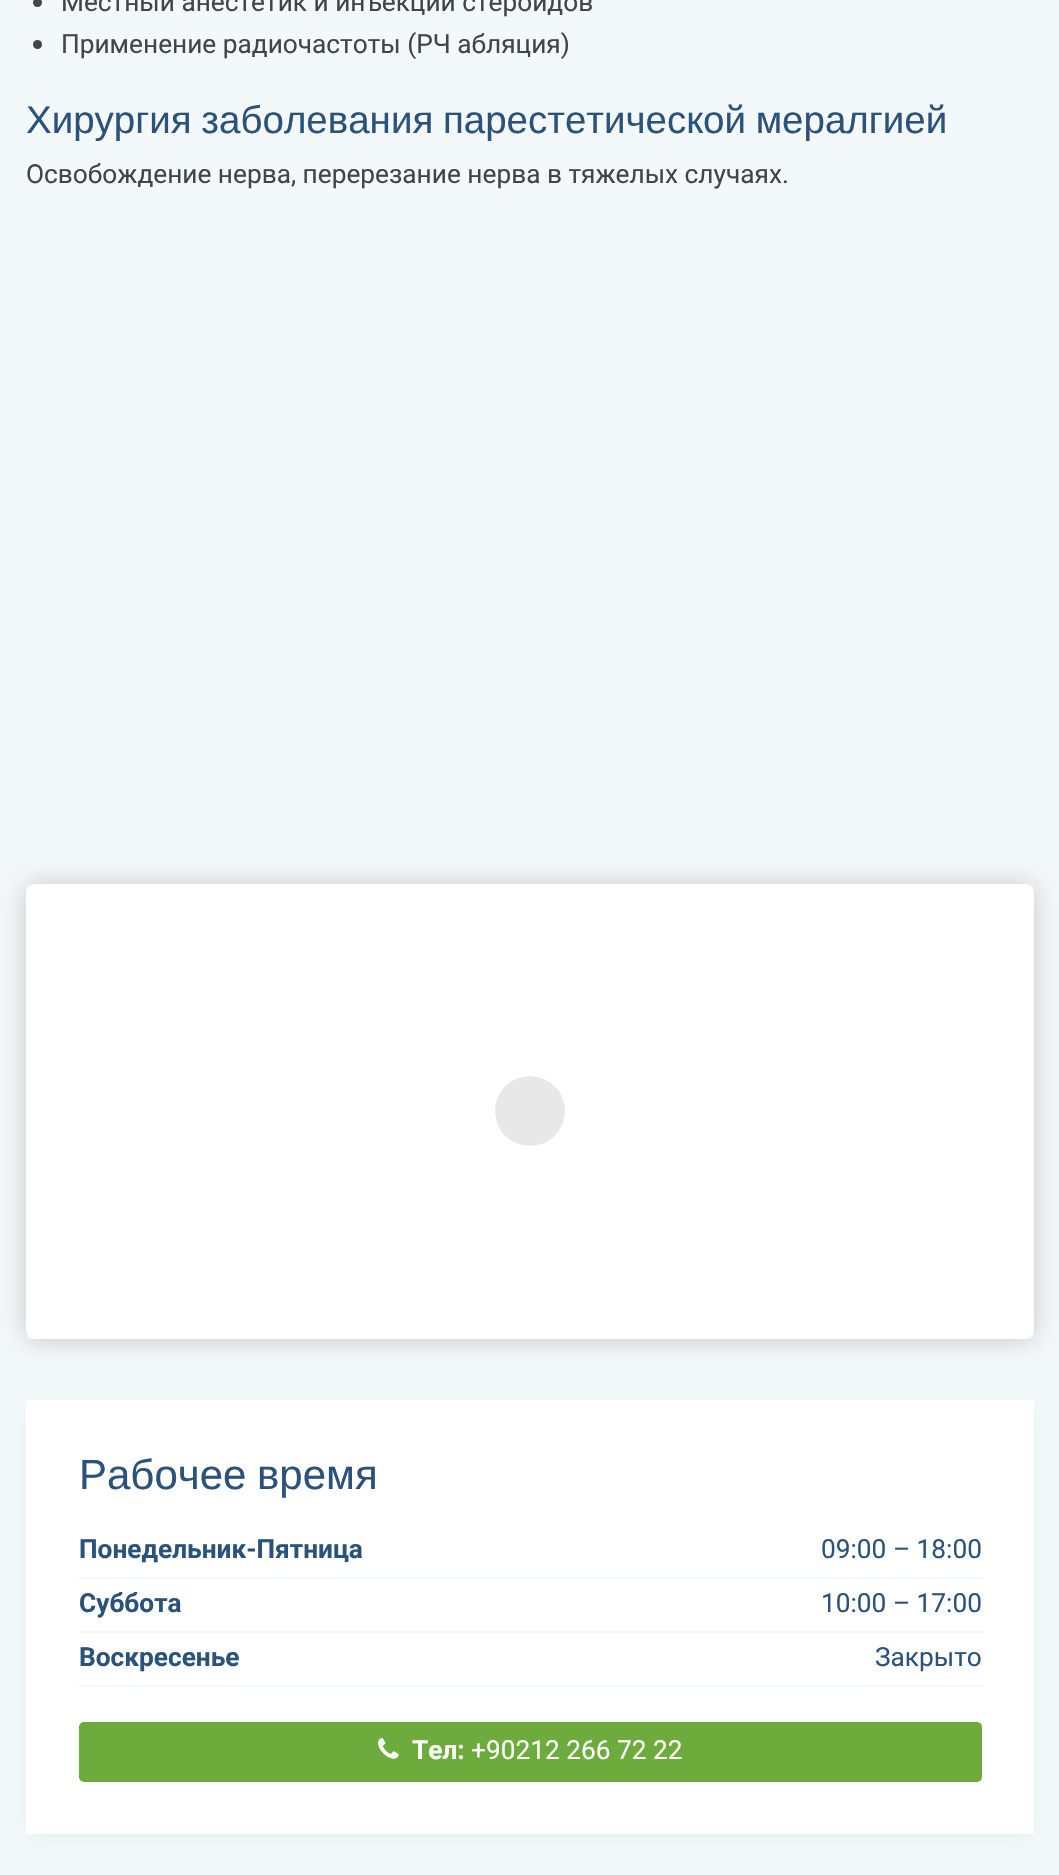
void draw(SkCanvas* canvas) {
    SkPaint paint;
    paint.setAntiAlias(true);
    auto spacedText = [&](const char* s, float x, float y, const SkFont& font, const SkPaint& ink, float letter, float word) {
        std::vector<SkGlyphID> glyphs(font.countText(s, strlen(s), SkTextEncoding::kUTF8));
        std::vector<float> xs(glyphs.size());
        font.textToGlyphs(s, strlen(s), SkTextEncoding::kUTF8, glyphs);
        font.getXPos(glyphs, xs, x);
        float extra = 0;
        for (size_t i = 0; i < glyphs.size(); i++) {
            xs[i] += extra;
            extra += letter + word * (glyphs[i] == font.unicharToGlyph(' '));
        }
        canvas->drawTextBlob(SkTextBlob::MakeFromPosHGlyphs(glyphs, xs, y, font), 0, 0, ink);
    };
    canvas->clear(0xFFF3F8FB);
    paint.setColor(0xFF444444);
    canvas->drawCircle(37.5f, 2.5f, 4.5f, paint);
    SkFont font1(fontMgr->matchFamilyStyle("Roboto", SkFontStyle::Normal()), 26.25f);
    font1.setSubpixel(true);
    canvas->drawString("Местный анестетик и инъекции стероидов", 61, 11, font1, paint);
    canvas->drawCircle(37.5f, 44.5f, 4.5f, paint);
    canvas->drawString("Применение радиочастоты (РЧ абляция)", 61, 53, font1, paint);
    SkFont font2(fontMgr->matchFamilyStyle("Liberation Sans", SkFontStyle::Normal()), 38.5f);
    font2.setSubpixel(true);
    paint.setColor(0xFF2A527B);
    spacedText("Хирургия заболевания парестетической мералгией", 26, 133, font2, paint, 0, -1);
    paint.setColor(0xFF444444);
    canvas->drawString("Освобождение нерва, перерезание нерва в тяжелых случаях.", 26, 183, font1, paint);
    paint.setColor(0x1A000000);
    paint.setMaskFilter(SkMaskFilter::MakeBlur(kNormal_SkBlurStyle, 9));
    canvas->drawRect(SkRect::MakeXYWH(35, 898, 991, 437), paint);
    paint.setMaskFilter(nullptr);
    paint.setColor(0xFFFFFFFF);
    canvas->drawRect(SkRect::MakeXYWH(26, 884, 1008, 455), paint);
    paint.setColor(0xFFCCCCCC);
    paint.setMaskFilter(SkMaskFilter::MakeBlur(kNormal_SkBlurStyle, 13));
    canvas->drawRoundRect(SkRect::MakeXYWH(26, 884, 1008, 455), 9, 9, paint);
    paint.setMaskFilter(nullptr);
    paint.setColor(0xFFFFFFFF);
    canvas->drawRoundRect(SkRect::MakeXYWH(26, 884, 1008, 455), 9, 9, paint);
    paint.setColor(0xFFE8E8E8);
    canvas->drawCircle(530, 1111, 35, paint);
    paint.setColor(0x1A000000);
    paint.setMaskFilter(SkMaskFilter::MakeBlur(kNormal_SkBlurStyle, 9));
    canvas->drawRect(SkRect::MakeXYWH(35, 1414, 991, 417), paint);
    paint.setMaskFilter(nullptr);
    paint.setColor(0xFFFFFFFF);
    canvas->drawRect(SkRect::MakeXYWH(26, 1400, 1008, 434), paint);
    SkFont font3(fontMgr->matchFamilyStyle("Liberation Sans", SkFontStyle::Normal()), 42);
    font3.setSubpixel(true);
    paint.setColor(0xFF2A527B);
    spacedText("Рабочее время", 79, 1489, font3, paint, 0, -1);
    paint.setColor(0xFFF3F8FB);
    canvas->drawRect(SkRect::MakeXYWH(79, 1577, 905, 2), paint);
    SkFont font4(fontMgr->matchFamilyStyle("Roboto", SkFontStyle::Bold()), 26.25f);
    font4.setSubpixel(true);
    paint.setColor(0xFF2A527B);
    canvas->drawString("Понедельник-Пятница", 79, 1558, font4, paint);
    canvas->drawString("09:00 – 18:00", 821, 1558, font1, paint);
    paint.setColor(0xFFF3F8FB);
    canvas->drawRect(SkRect::MakeXYWH(79, 1631, 905, 2), paint);
    paint.setColor(0xFF2A527B);
    canvas->drawString("Суббота", 79, 1612, font4, paint);
    canvas->drawString("10:00 – 17:00", 821, 1612, font1, paint);
    paint.setColor(0xFFF3F8FB);
    canvas->drawRect(SkRect::MakeXYWH(79, 1685, 905, 2), paint);
    paint.setColor(0xFF2A527B);
    canvas->drawString("Воскресенье", 79, 1666, font4, paint);
    canvas->drawString("Закрыто", 875, 1666, font1, paint);
    paint.setColor(0xFF6DAB3C);
    canvas->drawRoundRect(SkRect::MakeXYWH(79, 1722, 903, 60), 5, 5, paint);
    canvas->drawImageRect(SkImages::DeferredFromEncodedData(SkData::MakeFromFileName("img1.png")), SkRect::MakeXYWH(378, 1738, 21, 21), SkSamplingOptions());
    paint.setColor(0xFFFFFFFF);
    canvas->drawString("Тел:", 412, 1759, font4, paint);
    canvas->drawString("+90212 266 72 22", 471, 1759, font1, paint);
}
